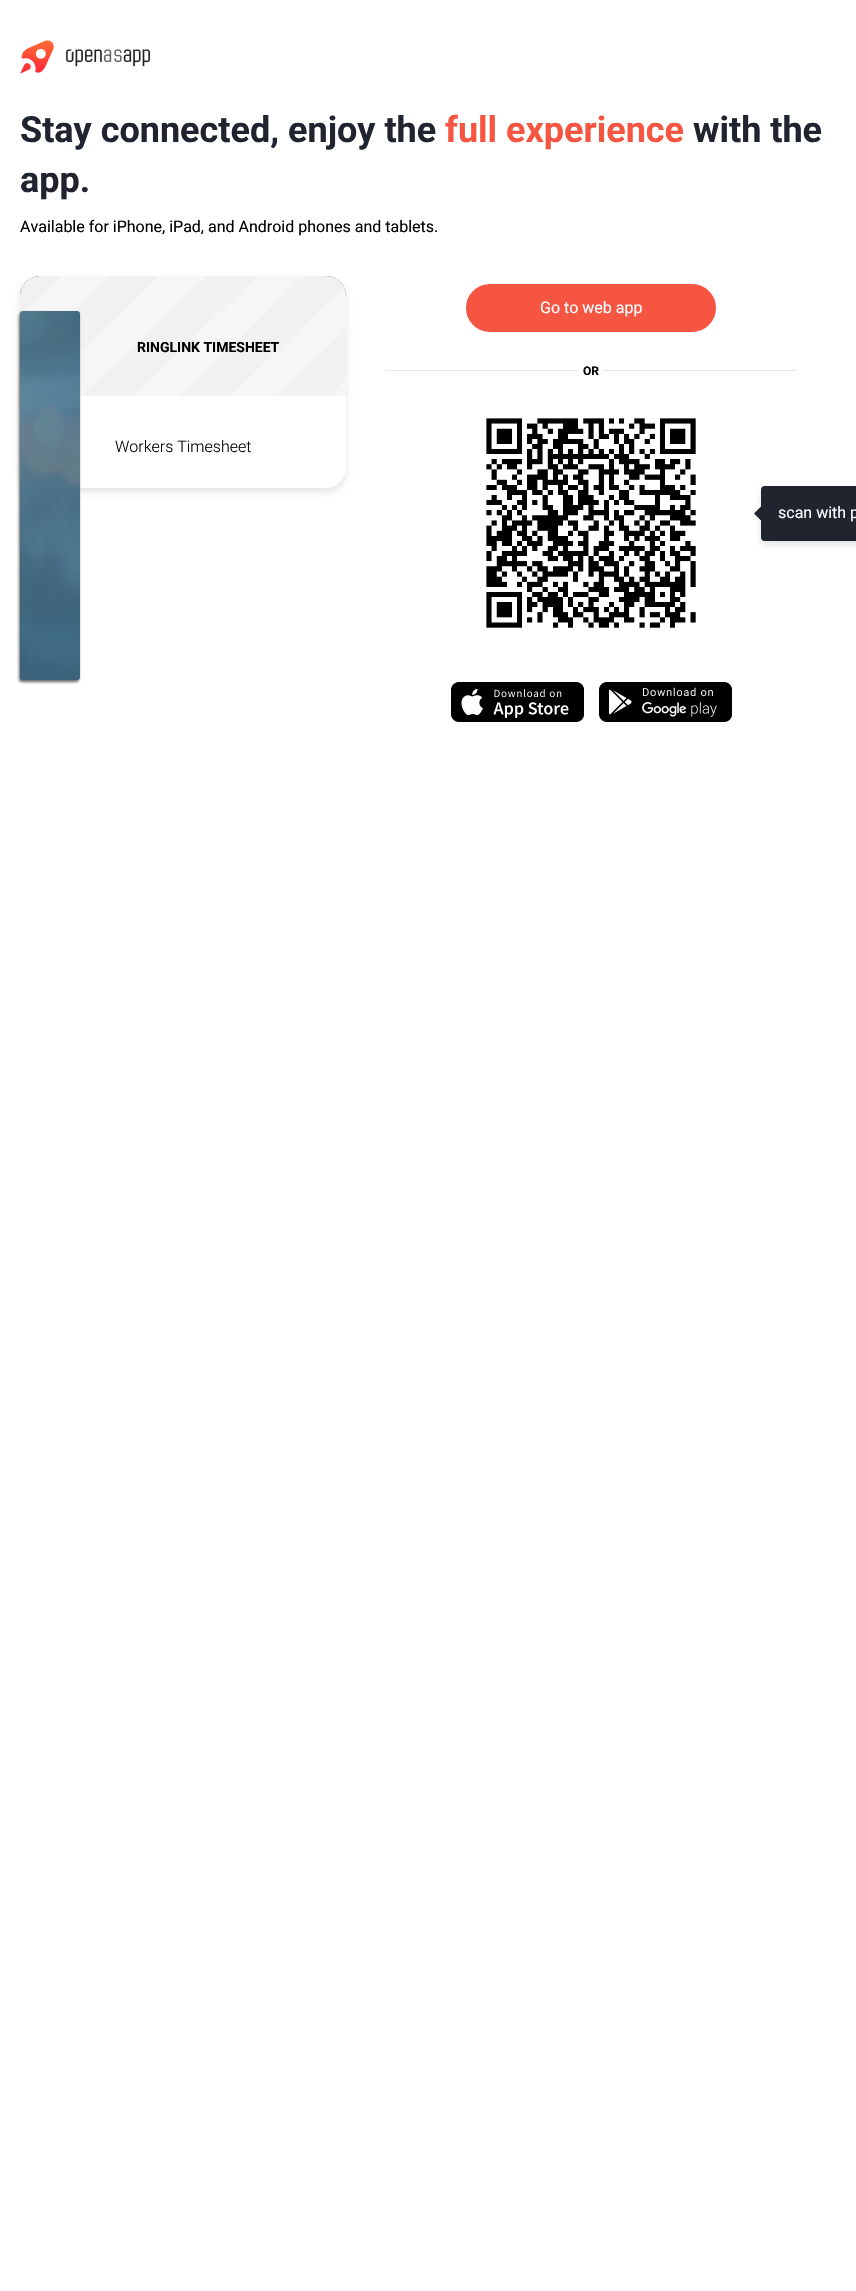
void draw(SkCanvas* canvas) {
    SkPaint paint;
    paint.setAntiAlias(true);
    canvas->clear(0xFFFFFFFF);
    canvas->drawImageRect(SkImages::DeferredFromEncodedData(SkData::MakeFromFileName("img1.png")), SkRect::MakeXYWH(20, 40, 130, 34), SkSamplingOptions());
    SkFont font1(fontMgr->matchFamilyStyle("Roboto", SkFontStyle::Bold()), 36);
    font1.setSubpixel(true);
    paint.setColor(0xFF20242F);
    canvas->drawString("Stay connected, enjoy the", 20, 142, font1, paint);
    paint.setColor(0xFFF55541);
    canvas->drawString("full experience", 445, 142, font1, paint);
    paint.setColor(0xFF20242F);
    canvas->drawString("with the", 693, 142, font1, paint);
    canvas->drawString("app.", 20, 192, font1, paint);
    SkFont font2(fontMgr->matchFamilyStyle("Roboto", SkFontStyle::Normal()), 16);
    font2.setSubpixel(true);
    paint.setColor(0xFF000000);
    canvas->drawString("Available for iPhone, iPad, and Android phones and tablets.", 20, 232, font2, paint);
    paint.setColor(0x1A000000);
    paint.setMaskFilter(SkMaskFilter::MakeBlur(kNormal_SkBlurStyle, 3));
    canvas->drawRoundRect(SkRect::MakeXYWH(20, 280, 326, 212), 20, 20, paint);
    paint.setMaskFilter(nullptr);
    paint.setColor(0xFFFFFFFF);
    canvas->drawRoundRect(SkRect::MakeXYWH(20, 276, 326, 212), 20, 20, paint);
    paint.setColor(0xFF455A64);
    canvas->drawPath(SkPathBuilder().moveTo(40, 276).lineTo(326, 276).cubicTo(337, 276, 346, 285, 346, 296).lineTo(346, 396).lineTo(20, 396).lineTo(20, 296).cubicTo(20, 285, 29, 276, 40, 276).close().detach(), paint);
    canvas->drawImageRect(SkImages::DeferredFromEncodedData(SkData::MakeFromFileName("img2.png")), SkRect::MakeXYWH(20, 276, 326, 120), SkSamplingOptions());
    paint.setColor(0xFF666666);
    paint.setMaskFilter(SkMaskFilter::MakeBlur(kNormal_SkBlurStyle, 1.5f));
    canvas->drawRoundRect(SkRect::MakeXYWH(19, 313, 60, 369), 3, 3, paint);
    paint.setMaskFilter(nullptr);
    canvas->drawImageRect(SkImages::DeferredFromEncodedData(SkData::MakeFromFileName("img3.png")), SkRect::MakeXYWH(20, 311, 60, 369), SkSamplingOptions());
    SkFont font3(fontMgr->matchFamilyStyle("Roboto", SkFontStyle::Bold()), 14);
    font3.setSubpixel(true);
    paint.setColor(0xFF000000);
    canvas->drawString("RINGLINK TIMESHEET", 137, 352, font3, paint);
    SkFont font4(fontMgr->matchFamilyStyle("Roboto", SkFontStyle(300, SkFontStyle::kNormal_Width, SkFontStyle::kUpright_Slant)), 16);
    font4.setSubpixel(true);
    canvas->drawString("Workers Timesheet", 115, 452, font4, paint);
    paint.setColor(0xFFF55541);
    canvas->drawRoundRect(SkRect::MakeXYWH(467, 285, 248, 46), 23, 23, paint);
    paint.setStyle(SkPaint::kStroke_Style);
    paint.setStrokeWidth(2);
    canvas->drawRoundRect(SkRect::MakeXYWH(467, 285, 248, 46), 23, 23, paint);
    paint.setStyle(SkPaint::kFill_Style);
    paint.setColor(0xFFFFFFFF);
    canvas->drawString("Go to web app", 540, 313, font2, paint);
    paint.setColor(0xFFE6E6E6);
    canvas->drawRect(SkRect::MakeXYWH(386, 370, 410, 1), paint);
    paint.setColor(0xFFFFFFFF);
    canvas->drawRect(SkRect::MakeXYWH(579, 370, 24, 1), paint);
    SkFont font5(fontMgr->matchFamilyStyle("Roboto", SkFontStyle::Bold()), 12);
    font5.setSubpixel(true);
    paint.setColor(0xFF000000);
    canvas->drawString("OR", 583, 375, font5, paint);
    canvas->drawImageRect(SkImages::DeferredFromEncodedData(SkData::MakeFromFileName("img4.png")), SkRect::MakeXYWH(486, 418, 210, 210), SkSamplingOptions());
    paint.setColor(0x1A000000);
    paint.setMaskFilter(SkMaskFilter::MakeBlur(kNormal_SkBlurStyle, 3));
    canvas->drawRoundRect(SkRect::MakeXYWH(761, 490, 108, 55), 4, 4, paint);
    paint.setMaskFilter(nullptr);
    paint.setColor(0xFF20242F);
    canvas->drawRoundRect(SkRect::MakeXYWH(761, 486, 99, 55), 4, 4, paint);
    canvas->drawPath(SkPathBuilder().moveTo(761, 506.5f).lineTo(768.5f, 513.5f).lineTo(761, 520.5f).lineTo(754, 513.5f).close().detach(), paint);
    paint.setColor(0xFFFFFFFF);
    canvas->drawString("scan with p", 778, 518, font2, paint);
    canvas->drawImageRect(SkImages::DeferredFromEncodedData(SkData::MakeFromFileName("img5.png")), SkRect::MakeXYWH(451, 682, 133, 40), SkSamplingOptions());
    canvas->drawImageRect(SkImages::DeferredFromEncodedData(SkData::MakeFromFileName("img6.png")), SkRect::MakeXYWH(599, 682, 133, 40), SkSamplingOptions());
}
